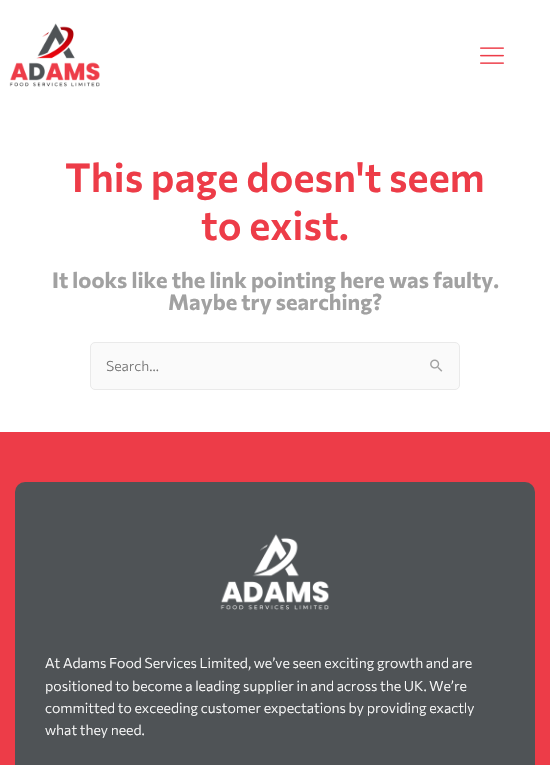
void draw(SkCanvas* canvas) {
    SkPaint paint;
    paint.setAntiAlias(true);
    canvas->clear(0xFFFFFFFF);
    canvas->drawImageRect(SkImages::DeferredFromEncodedData(SkData::MakeFromFileName("img1.png")), SkRect::MakeXYWH(9, 23, 91, 64), SkSamplingOptions());
    canvas->drawImageRect(SkImages::DeferredFromEncodedData(SkData::MakeFromFileName("img2.png")), SkRect::MakeXYWH(480, 47, 24, 17), SkSamplingOptions());
    SkFont font1(fontMgr->matchFamilyStyle("Commissioner", SkFontStyle(600, SkFontStyle::kNormal_Width, SkFontStyle::kUpright_Slant)), 40);
    font1.setSubpixel(true);
    paint.setColor(0xFFED3C48);
    canvas->drawString("This page doesn't seem", 65, 192, font1, paint);
    canvas->drawString("to exist.", 201, 240, font1, paint);
    SkFont font2(fontMgr->matchFamilyStyle("Commissioner", SkFontStyle::Bold()), 21.9f);
    font2.setSubpixel(true);
    paint.setColor(0xFFA1A1A1);
    canvas->drawString("It looks like the link pointing here was faulty.", 52, 288, font2, paint);
    canvas->drawString("Maybe try searching?", 168, 310, font2, paint);
    paint.setColor(0xFFFAFAFA);
    canvas->drawRoundRect(SkRect::MakeXYWH(90.5f, 342.5f, 369, 47), 4.5f, 4.5f, paint);
    paint.setStyle(SkPaint::kStroke_Style);
    paint.setStrokeWidth(1);
    paint.setColor(0xFFEAEAEA);
    canvas->drawRoundRect(SkRect::MakeXYWH(90.5f, 342.5f, 369, 47), 4.5f, 4.5f, paint);
    SkFont font3(fontMgr->matchFamilyStyle("Commissioner", SkFontStyle(300, SkFontStyle::kNormal_Width, SkFontStyle::kUpright_Slant)), 14);
    font3.setSubpixel(true);
    paint.setStyle(SkPaint::kFill_Style);
    paint.setColor(0xFF757575);
    canvas->drawString("Search...", 106, 371, font3, paint);
    canvas->drawImageRect(SkImages::DeferredFromEncodedData(SkData::MakeFromFileName("img3.png")), SkRect::MakeXYWH(430, 359, 13, 13), SkSamplingOptions());
    paint.setColor(0xFFED3C48);
    canvas->drawRect(SkRect::MakeXYWH(0, 432, 550, 333), paint);
    paint.setColor(0xFF4F5356);
    canvas->drawRoundRect(SkRect::MakeXYWH(15, 482, 520, 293), 10, 10, paint);
    canvas->drawImageRect(SkImages::DeferredFromEncodedData(SkData::MakeFromFileName("img4.png")), SkRect::MakeXYWH(220, 534, 109, 76), SkSamplingOptions());
    paint.setColor(0xFFFFFFFF);
    canvas->drawString("At Adams Food Services Limited, we’ve seen exciting growth and are", 45, 668, font3, paint);
    canvas->drawString("positioned to become a leading supplier in and across the UK. We’re", 45, 691, font3, paint);
    canvas->drawString("committed to exceeding customer expectations by providing exactly", 45, 713, font3, paint);
    canvas->drawString("what they need.", 45, 735, font3, paint);
}
